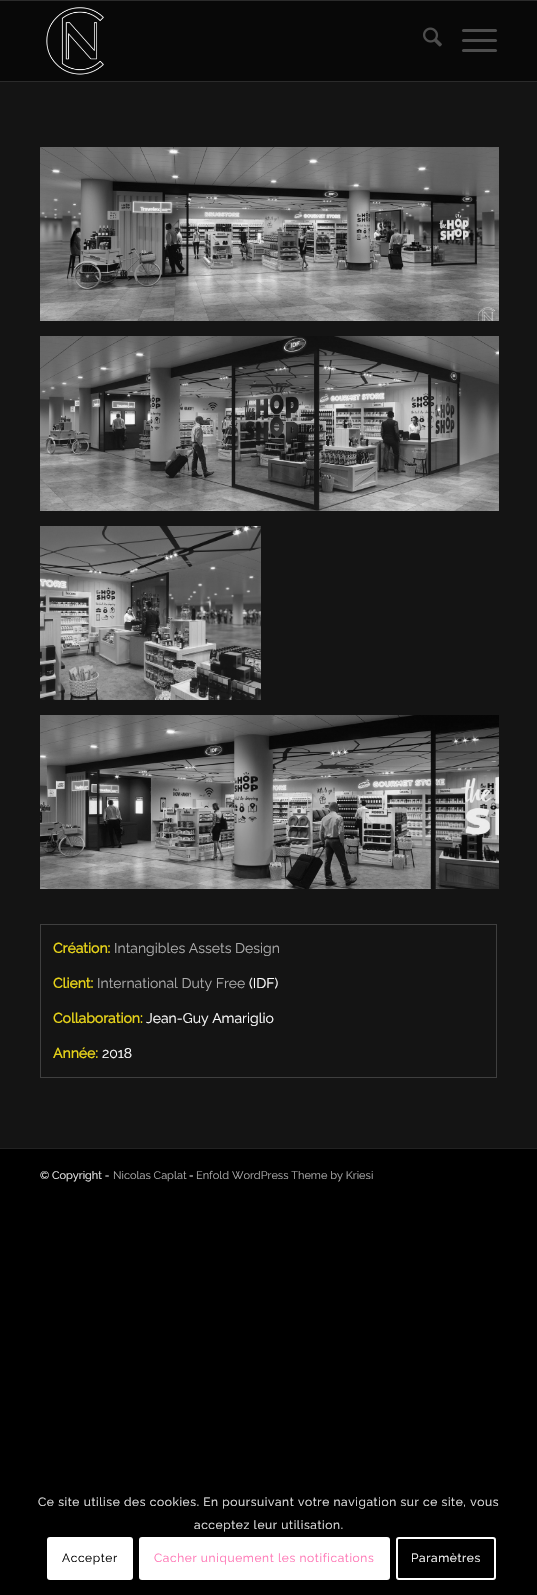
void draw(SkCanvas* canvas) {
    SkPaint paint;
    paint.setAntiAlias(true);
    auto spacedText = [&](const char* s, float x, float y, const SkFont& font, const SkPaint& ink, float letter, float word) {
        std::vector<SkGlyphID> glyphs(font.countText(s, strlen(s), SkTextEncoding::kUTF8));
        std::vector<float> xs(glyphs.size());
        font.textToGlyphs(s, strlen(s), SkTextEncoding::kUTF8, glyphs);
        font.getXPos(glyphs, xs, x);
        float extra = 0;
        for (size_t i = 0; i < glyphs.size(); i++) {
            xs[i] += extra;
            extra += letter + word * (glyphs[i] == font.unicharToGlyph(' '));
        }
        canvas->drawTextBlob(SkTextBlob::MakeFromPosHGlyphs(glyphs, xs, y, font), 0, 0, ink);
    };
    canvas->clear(0xFF000000);
    paint.setColor(0xFF2B2B2B);
    canvas->drawRect(SkRect::MakeXYWH(0, 0, 537, 1), paint);
    canvas->drawRect(SkRect::MakeXYWH(0, 81, 537, 1), paint);
    paint.setColor(0xFF080808);
    canvas->drawRect(SkRect::MakeXYWH(0, 1, 537, 80), paint);
    canvas->drawImageRect(SkImages::DeferredFromEncodedData(SkData::MakeFromFileName("img1.png")), SkRect::MakeXYWH(46, 7, 58, 68), SkSamplingOptions());
    canvas->drawImageRect(SkImages::DeferredFromEncodedData(SkData::MakeFromFileName("img2.png")), SkRect::MakeXYWH(423, 27, 19, 20), SkSamplingOptions());
    paint.setColor(0xFF4D4D4D);
    canvas->drawRoundRect(SkRect::MakeXYWH(462, 39, 35, 3), 1.5f, 1.5f, paint);
    canvas->drawRoundRect(SkRect::MakeXYWH(462, 29, 35, 3), 1.5f, 1.5f, paint);
    canvas->drawRoundRect(SkRect::MakeXYWH(462, 49, 35, 3), 1.5f, 1.5f, paint);
    paint.setColor(0xFF141414);
    canvas->drawRect(SkRect::MakeXYWH(0, 82, 537, 1066), paint);
    canvas->drawImageRect(SkImages::DeferredFromEncodedData(SkData::MakeFromFileName("img3.png")), SkRect::MakeXYWH(40, 147, 459, 174), SkSamplingOptions());
    canvas->drawImageRect(SkImages::DeferredFromEncodedData(SkData::MakeFromFileName("img4.png")), SkRect::MakeXYWH(40, 336, 459, 175), SkSamplingOptions());
    canvas->drawImageRect(SkImages::DeferredFromEncodedData(SkData::MakeFromFileName("img5.png")), SkRect::MakeXYWH(40, 526, 221, 174), SkSamplingOptions());
    canvas->drawImageRect(SkImages::DeferredFromEncodedData(SkData::MakeFromFileName("img6.png")), SkRect::MakeXYWH(40, 715, 459, 174), SkSamplingOptions());
    paint.setStyle(SkPaint::kStroke_Style);
    paint.setStrokeWidth(1);
    paint.setColor(0xFF3F3F3F);
    canvas->drawRect(SkRect::MakeXYWH(40.5f, 924.5f, 456, 153), paint);
    SkFont font1(fontMgr->matchFamilyStyle("Raleway", SkFontStyle::Bold()), 14);
    font1.setSubpixel(true);
    paint.setStyle(SkPaint::kFill_Style);
    paint.setColor(0xFFE6D219);
    canvas->drawString("Création:", 53, 953, font1, paint);
    SkFont font2(fontMgr->matchFamilyStyle("Raleway", SkFontStyle(100, SkFontStyle::kNormal_Width, SkFontStyle::kUpright_Slant)), 14);
    font2.setSubpixel(true);
    paint.setColor(0xFFADADAD);
    canvas->drawString("Intangibles Assets Design", 114, 953, font2, paint);
    paint.setColor(0xFFE6D219);
    canvas->drawString("Client:", 53, 988, font1, paint);
    paint.setColor(0xFFADADAD);
    canvas->drawString("International Duty Free", 97, 988, font2, paint);
    paint.setColor(0xFFFFFFFF);
    canvas->drawString("(IDF)", 249, 988, font2, paint);
    paint.setColor(0xFFE6D219);
    canvas->drawString("Collaboration:", 53, 1023, font1, paint);
    paint.setColor(0xFFFFFFFF);
    canvas->drawString("Jean-Guy Amariglio", 146, 1023, font2, paint);
    paint.setColor(0xFFE6D219);
    canvas->drawString("Année:", 53, 1058, font1, paint);
    paint.setColor(0xFFFFFFFF);
    canvas->drawString("2018", 102, 1058, font2, paint);
    paint.setColor(0xFF222222);
    canvas->drawRect(SkRect::MakeXYWH(0, 1148, 537, 1), paint);
    SkFont font3(fontMgr->matchFamilyStyle("Raleway", SkFontStyle(100, SkFontStyle::kNormal_Width, SkFontStyle::kUpright_Slant)), 11);
    font3.setSubpixel(true);
    paint.setColor(0xFFEEEEEE);
    canvas->drawString("© Copyright -", 40, 1179, font3, paint);
    paint.setColor(0xFFADADAD);
    canvas->drawString("Nicolas Caplat", 113, 1179, font3, paint);
    paint.setColor(0xFFEEEEEE);
    canvas->drawString("-", 189, 1179, font3, paint);
    paint.setColor(0xFFADADAD);
    canvas->drawString("Enfold WordPress Theme by Kriesi", 196, 1179, font3, paint);
    SkFont font4(fontMgr->matchFamilyStyle("Raleway", SkFontStyle(100, SkFontStyle::kNormal_Width, SkFontStyle::kUpright_Slant)), 12);
    font4.setSubpixel(true);
    paint.setColor(0xFFE6E6E6);
    spacedText("Ce site utilise des cookies. En poursuivant votre navigation sur ce site, vous", 38, 1506, font4, paint, 0.6f, 0);
    spacedText("acceptez leur utilisation.", 194, 1529, font4, paint, 0.6f, 0);
    paint.setColor(0xFFFFFFFF);
    canvas->drawRoundRect(SkRect::MakeXYWH(47, 1537, 86, 43), 3, 3, paint);
    paint.setColor(0xFF000000);
    spacedText("Accepter", 62, 1562, font4, paint, 0.6f, 0);
    paint.setColor(0xFFFFFFFF);
    canvas->drawRoundRect(SkRect::MakeXYWH(140, 1538, 249, 41), 2, 2, paint);
    paint.setStyle(SkPaint::kStroke_Style);
    paint.setStrokeWidth(2);
    canvas->drawRoundRect(SkRect::MakeXYWH(140, 1538, 249, 41), 2, 2, paint);
    paint.setStyle(SkPaint::kFill_Style);
    paint.setColor(0xFFFF75B5);
    spacedText("Cacher uniquement les notifications", 154, 1562, font4, paint, 0.6f, 0);
    paint.setStyle(SkPaint::kStroke_Style);
    paint.setColor(0xFFFFFFFF);
    canvas->drawRoundRect(SkRect::MakeXYWH(397, 1538, 98, 41), 2, 2, paint);
    paint.setStyle(SkPaint::kFill_Style);
    spacedText("Paramètres", 411, 1562, font4, paint, 0.6f, 0);
}
